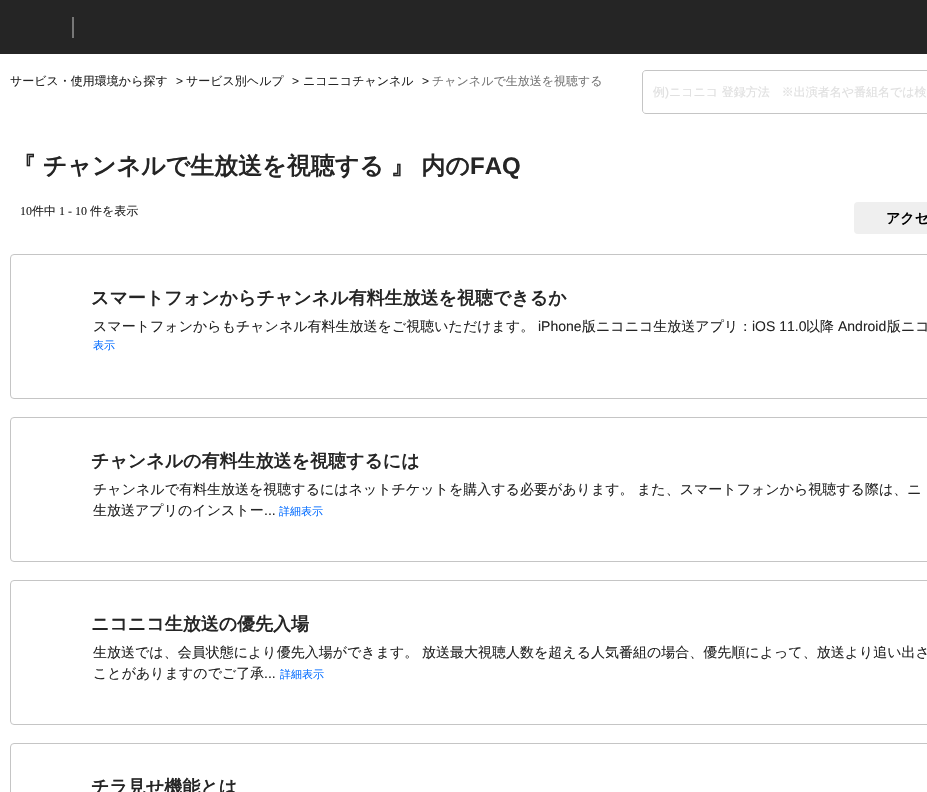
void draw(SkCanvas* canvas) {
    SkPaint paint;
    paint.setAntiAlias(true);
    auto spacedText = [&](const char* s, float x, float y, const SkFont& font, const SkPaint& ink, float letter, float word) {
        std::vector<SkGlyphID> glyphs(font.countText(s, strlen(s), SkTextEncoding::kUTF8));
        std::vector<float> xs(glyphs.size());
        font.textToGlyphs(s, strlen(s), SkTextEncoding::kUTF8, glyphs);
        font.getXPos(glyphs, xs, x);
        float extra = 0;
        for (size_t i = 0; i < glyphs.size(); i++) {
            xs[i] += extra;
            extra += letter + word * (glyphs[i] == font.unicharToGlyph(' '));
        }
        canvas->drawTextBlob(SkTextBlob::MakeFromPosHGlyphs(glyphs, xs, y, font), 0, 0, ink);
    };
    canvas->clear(0xFFFFFFFF);
    SkFont font1(fontMgr->matchFamilyStyle("WenQuanYi Zen Hei", SkFontStyle(500, SkFontStyle::kNormal_Width, SkFontStyle::kUpright_Slant)), 12);
    font1.setSubpixel(true);
    paint.setColor(0xFF252525);
    canvas->drawString("サービス・使用環境から探す", 10, 85, font1, paint);
    SkFont font2(fontMgr->matchFamilyStyle("Liberation Sans", SkFontStyle::Normal()), 12);
    font2.setSubpixel(true);
    canvas->drawString(">", 176, 85, font2, paint);
    canvas->drawString("サービス別ヘルプ", 186, 85, font1, paint);
    canvas->drawString(">", 292, 85, font2, paint);
    canvas->drawString("ニコニコチャンネル", 303, 85, font1, paint);
    canvas->drawString(">", 422, 85, font2, paint);
    paint.setColor(0xFF777777);
    canvas->drawString("チャンネルで生放送を視聴する", 432, 85, font1, paint);
    SkFont font3(fontMgr->matchFamilyStyle("WenQuanYi Zen Hei", SkFontStyle::Bold()), 24);
    font3.setSubpixel(true);
    paint.setColor(0xFF252525);
    spacedText("『 チャンネルで生放送を視聴する 』 内の", 12, 174, font3, paint, 0, -0.5f);
    SkFont font4(fontMgr->matchFamilyStyle("Liberation Sans", SkFontStyle::Bold()), 24);
    font4.setSubpixel(true);
    canvas->drawString("FAQ", 470, 174, font4, paint);
    SkFont font5(fontMgr->matchFamilyStyle("Liberation Serif", SkFontStyle::Normal()), 12);
    font5.setSubpixel(true);
    canvas->drawString("10", 20, 215, font5, paint);
    canvas->drawString("件中", 32, 215, font1, paint);
    canvas->drawString("1 - 10", 59, 215, font5, paint);
    canvas->drawString("件を表示", 90, 215, font1, paint);
    paint.setColor(0xFFEFEFEF);
    canvas->drawRoundRect(SkRect::MakeXYWH(854, 202, 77, 32), 4, 4, paint);
    SkFont font6(fontMgr->matchFamilyStyle("WenQuanYi Zen Hei", SkFontStyle::Bold()), 14);
    font6.setSubpixel(true);
    paint.setColor(0xFF000000);
    canvas->drawString("アクセ", 886, 223, font6, paint);
    paint.setStyle(SkPaint::kStroke_Style);
    paint.setStrokeWidth(1);
    paint.setColor(0xFFC5C5C5);
    canvas->drawRoundRect(SkRect::MakeXYWH(10.5f, 254.5f, 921, 144), 3.5f, 3.5f, paint);
    SkFont font7(fontMgr->matchFamilyStyle("WenQuanYi Zen Hei", SkFontStyle::Bold()), 18);
    font7.setSubpixel(true);
    paint.setStyle(SkPaint::kFill_Style);
    paint.setColor(0xFF252525);
    canvas->drawString("スマートフォンからチャンネル有料生放送を視聴できるか", 91, 304, font7, paint);
    SkFont font8(fontMgr->matchFamilyStyle("WenQuanYi Zen Hei", SkFontStyle(500, SkFontStyle::kNormal_Width, SkFontStyle::kUpright_Slant)), 14);
    font8.setSubpixel(true);
    canvas->drawString("スマートフォンからもチャンネル有料生放送をご視聴いただけます。", 93, 331, font8, paint);
    SkFont font9(fontMgr->matchFamilyStyle("Liberation Sans", SkFontStyle::Normal()), 14);
    font9.setSubpixel(true);
    canvas->drawString("iPhone", 538, 331, font9, paint);
    canvas->drawString("版ニコニコ生放送アプリ：", 582, 331, font8, paint);
    canvas->drawString("iOS 11.0", 752, 331, font9, paint);
    canvas->drawString("以降", 806, 331, font8, paint);
    canvas->drawString("Android", 838, 331, font9, paint);
    canvas->drawString("版ニコ", 887, 331, font8, paint);
    SkFont font10(fontMgr->matchFamilyStyle("WenQuanYi Zen Hei", SkFontStyle(500, SkFontStyle::kNormal_Width, SkFontStyle::kUpright_Slant)), 11);
    font10.setSubpixel(true);
    paint.setColor(0xFF056DFF);
    canvas->drawString("表示", 93, 349, font10, paint);
    paint.setStyle(SkPaint::kStroke_Style);
    paint.setColor(0xFFC5C5C5);
    canvas->drawRoundRect(SkRect::MakeXYWH(10.5f, 417.5f, 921, 144), 3.5f, 3.5f, paint);
    paint.setStyle(SkPaint::kFill_Style);
    paint.setColor(0xFF252525);
    canvas->drawString("チャンネルの有料生放送を視聴するには", 91, 467, font7, paint);
    canvas->drawString("チャンネルで有料生放送を視聴するにはネットチケットを購入する必要があります。", 93, 494, font8, paint);
    canvas->drawString("また、スマートフォンから視聴する際は、ニ", 637, 494, font8, paint);
    canvas->drawString("生放送アプリのインストー", 93, 515, font8, paint);
    canvas->drawString("...", 264, 515, font9, paint);
    paint.setColor(0xFF056DFF);
    canvas->drawString("詳細表示", 279, 515, font10, paint);
    paint.setStyle(SkPaint::kStroke_Style);
    paint.setColor(0xFFC5C5C5);
    canvas->drawRoundRect(SkRect::MakeXYWH(10.5f, 580.5f, 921, 144), 3.5f, 3.5f, paint);
    paint.setStyle(SkPaint::kFill_Style);
    paint.setColor(0xFF252525);
    canvas->drawString("ニコニコ生放送の優先入場", 91, 630, font7, paint);
    canvas->drawString("生放送では、会員状態により優先入場ができます。", 93, 657, font8, paint);
    canvas->drawString("放送最大視聴人数を超える人気番組の場合、優先順によって、放送より追い出さ", 422, 657, font8, paint);
    canvas->drawString("ことがありますのでご了承", 93, 678, font8, paint);
    canvas->drawString("...", 264, 678, font9, paint);
    paint.setColor(0xFF056DFF);
    canvas->drawString("詳細表示", 280, 678, font10, paint);
    paint.setStyle(SkPaint::kStroke_Style);
    paint.setColor(0xFFC5C5C5);
    canvas->drawRoundRect(SkRect::MakeXYWH(10.5f, 743.5f, 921, 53), 3.5f, 3.5f, paint);
    paint.setStyle(SkPaint::kFill_Style);
    paint.setColor(0xFF252525);
    canvas->drawString("チラ見せ機能とは", 91, 793, font7, paint);
    canvas->drawRect(SkRect::MakeXYWH(0, 0, 927, 54), paint);
    paint.setColor(0xFF777777);
    canvas->drawRect(SkRect::MakeXYWH(72, 17, 2, 21), paint);
    paint.setStyle(SkPaint::kStroke_Style);
    paint.setColor(0xFFC5C5C5);
    canvas->drawPath(SkPathBuilder().moveTo(646, 70.5f).lineTo(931.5f, 70.5f).lineTo(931.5f, 113.5f).lineTo(646, 113.5f).cubicTo(644, 113.5f, 642.5f, 112, 642.5f, 110).lineTo(642.5f, 74).cubicTo(642.5f, 72, 644, 70.5f, 646, 70.5f).close().detach(), paint);
    paint.setStyle(SkPaint::kFill_Style);
    paint.setColor(0xFFE0E0E0);
    canvas->drawString("例", 653, 96, font1, paint);
    canvas->drawString(")", 665, 96, font2, paint);
    canvas->drawString("ニコニコ 登録方法　※出演者名や番組名では検", 669, 96, font1, paint);
}
